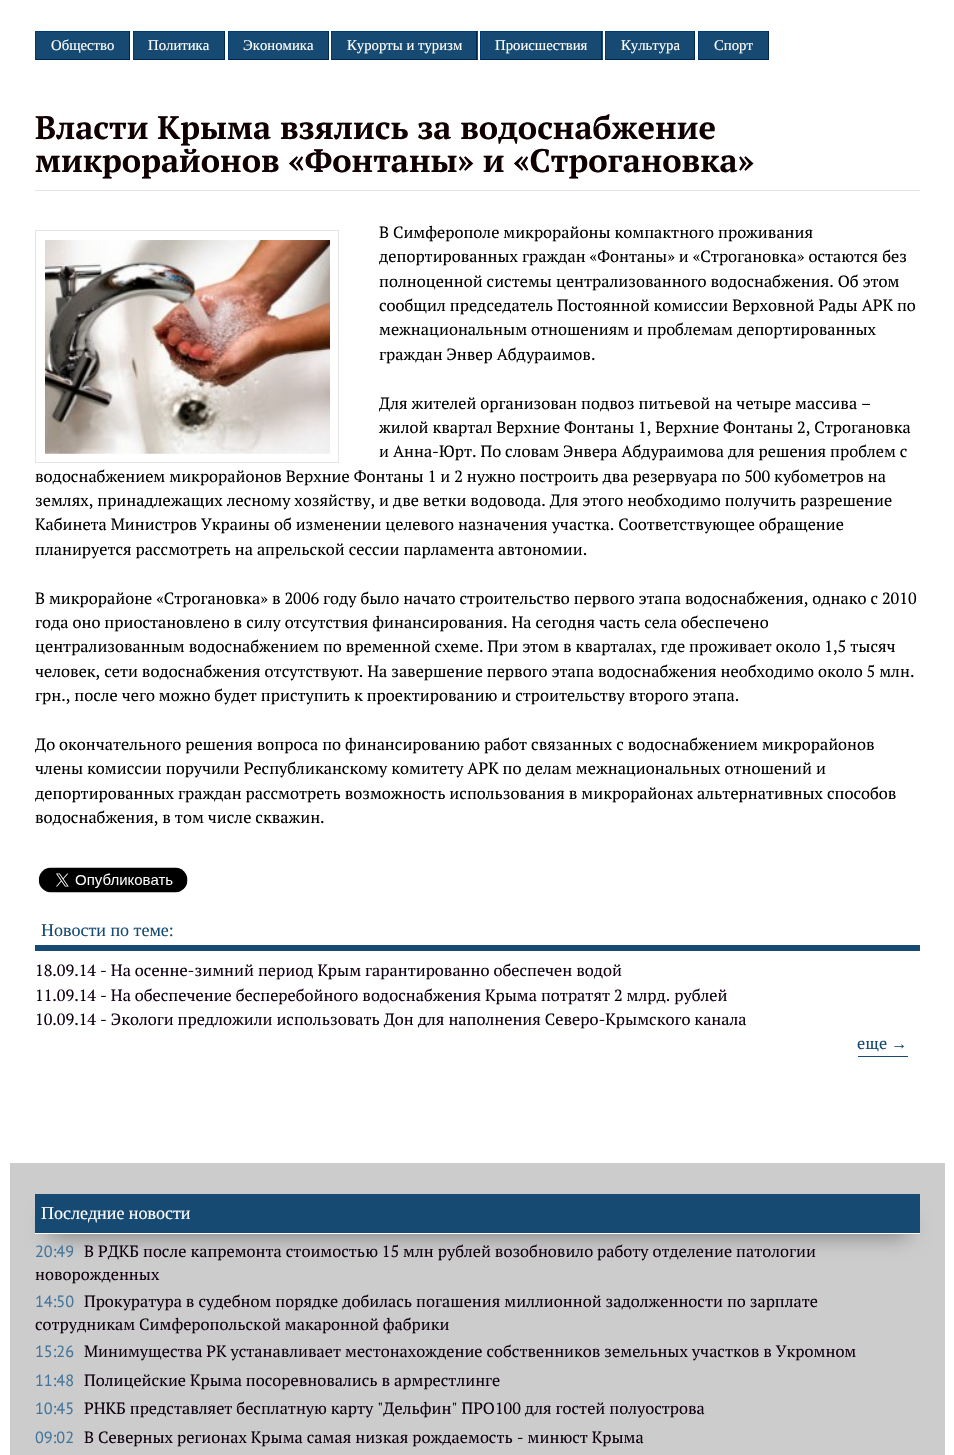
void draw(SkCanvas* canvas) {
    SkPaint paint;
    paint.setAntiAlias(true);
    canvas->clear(0xFFFFFFFF);
    paint.setColor(0xFF164A72);
    canvas->drawRect(SkRect::MakeXYWH(36, 32, 93, 27), paint);
    paint.setColor(0xFF003973);
    canvas->drawRect(SkRect::MakeXYWH(35, 31, 95, 1), paint);
    paint.setColor(0xFF00264D);
    canvas->drawRect(SkRect::MakeXYWH(129, 31, 1, 29), paint);
    canvas->drawRect(SkRect::MakeXYWH(35, 59, 95, 1), paint);
    paint.setColor(0xFF003973);
    canvas->drawRect(SkRect::MakeXYWH(35, 31, 1, 29), paint);
    SkFont font1(fontMgr->matchFamilyStyle("Liberation Serif", SkFontStyle::Normal()), 14.75f);
    font1.setSubpixel(true);
    paint.setColor(0xFFFFFFFF);
    canvas->drawString("Общество", 51, 50, font1, paint);
    paint.setColor(0xFF164A72);
    canvas->drawRect(SkRect::MakeXYWH(134, 32, 90, 27), paint);
    paint.setColor(0xFF003973);
    canvas->drawRect(SkRect::MakeXYWH(133, 31, 92, 1), paint);
    paint.setColor(0xFF00264D);
    canvas->drawRect(SkRect::MakeXYWH(224, 31, 1, 29), paint);
    canvas->drawRect(SkRect::MakeXYWH(133, 59, 92, 1), paint);
    paint.setColor(0xFF003973);
    canvas->drawRect(SkRect::MakeXYWH(133, 31, 1, 29), paint);
    paint.setColor(0xFFFFFFFF);
    canvas->drawString("Политика", 148, 50, font1, paint);
    paint.setColor(0xFF164A72);
    canvas->drawRect(SkRect::MakeXYWH(229, 32, 99, 27), paint);
    paint.setColor(0xFF003973);
    canvas->drawRect(SkRect::MakeXYWH(228, 31, 101, 1), paint);
    paint.setColor(0xFF00264D);
    canvas->drawRect(SkRect::MakeXYWH(328, 31, 1, 29), paint);
    canvas->drawRect(SkRect::MakeXYWH(228, 59, 101, 1), paint);
    paint.setColor(0xFF003973);
    canvas->drawRect(SkRect::MakeXYWH(228, 31, 1, 29), paint);
    paint.setColor(0xFFFFFFFF);
    canvas->drawString("Экономика", 243, 50, font1, paint);
    paint.setColor(0xFF164A72);
    canvas->drawRect(SkRect::MakeXYWH(332, 32, 146, 27), paint);
    paint.setColor(0xFF003973);
    canvas->drawRect(SkRect::MakeXYWH(331, 31, 147, 1), paint);
    paint.setColor(0xFF00264D);
    canvas->drawRect(SkRect::MakeXYWH(476, 31, 1, 29), paint);
    canvas->drawRect(SkRect::MakeXYWH(331, 59, 147, 1), paint);
    paint.setColor(0xFF003973);
    canvas->drawRect(SkRect::MakeXYWH(331, 31, 1, 29), paint);
    paint.setColor(0xFFFFFFFF);
    canvas->drawString("Курорты и туризм", 347, 50, font1, paint);
    paint.setColor(0xFF164A72);
    canvas->drawRect(SkRect::MakeXYWH(481, 32, 122, 27), paint);
    paint.setColor(0xFF003973);
    canvas->drawRect(SkRect::MakeXYWH(480, 31, 123, 1), paint);
    paint.setColor(0xFF00264D);
    canvas->drawRect(SkRect::MakeXYWH(601, 31, 1, 29), paint);
    canvas->drawRect(SkRect::MakeXYWH(480, 59, 123, 1), paint);
    paint.setColor(0xFF003973);
    canvas->drawRect(SkRect::MakeXYWH(480, 31, 1, 29), paint);
    paint.setColor(0xFFFFFFFF);
    canvas->drawString("Происшествия", 495, 50, font1, paint);
    paint.setColor(0xFF164A72);
    canvas->drawRect(SkRect::MakeXYWH(606, 32, 88, 27), paint);
    paint.setColor(0xFF003973);
    canvas->drawRect(SkRect::MakeXYWH(605, 31, 90, 1), paint);
    paint.setColor(0xFF00264D);
    canvas->drawRect(SkRect::MakeXYWH(694, 31, 1, 29), paint);
    canvas->drawRect(SkRect::MakeXYWH(605, 59, 90, 1), paint);
    paint.setColor(0xFF003973);
    canvas->drawRect(SkRect::MakeXYWH(605, 31, 1, 29), paint);
    paint.setColor(0xFFFFFFFF);
    canvas->drawString("Культура", 621, 50, font1, paint);
    paint.setColor(0xFF164A72);
    canvas->drawRect(SkRect::MakeXYWH(699, 32, 69, 27), paint);
    paint.setColor(0xFF003973);
    canvas->drawRect(SkRect::MakeXYWH(698, 31, 71, 1), paint);
    paint.setColor(0xFF00264D);
    canvas->drawRect(SkRect::MakeXYWH(768, 31, 1, 29), paint);
    canvas->drawRect(SkRect::MakeXYWH(698, 59, 71, 1), paint);
    paint.setColor(0xFF003973);
    canvas->drawRect(SkRect::MakeXYWH(698, 31, 1, 29), paint);
    paint.setColor(0xFFFFFFFF);
    canvas->drawString("Спорт", 714, 50, font1, paint);
    SkFont font2(fontMgr->matchFamilyStyle("PT Serif", SkFontStyle::Bold()), 32.5f);
    font2.setSubpixel(true);
    paint.setColor(0xFF100001);
    canvas->drawString("Власти Крыма взялись за водоснабжение", 35, 139, font2, paint);
    canvas->drawString("микрорайонов «Фонтаны» и «Строгановка»", 35, 172, font2, paint);
    paint.setColor(0xFFE6E4DE);
    canvas->drawRect(SkRect::MakeXYWH(35, 190, 885, 1), paint);
    SkFont font3(fontMgr->matchFamilyStyle("PT Serif", SkFontStyle::Normal()), 16.25f);
    font3.setSubpixel(true);
    paint.setColor(0xFF000000);
    canvas->drawString("В Симферополе микрорайоны компактного проживания", 379, 238, font3, paint);
    canvas->drawString("депортированных граждан «Фонтаны» и «Строгановка» остаются без", 379, 262, font3, paint);
    canvas->drawString("полноценной системы централизованного водоснабжения. Об этом", 379, 287, font3, paint);
    canvas->drawString("сообщил председатель Постоянной комиссии Верховной Рады АРК по", 379, 311, font3, paint);
    canvas->drawString("межнациональным отношениям и проблемам депортированных", 379, 335, font3, paint);
    canvas->drawString("граждан Энвер Абдураимов.", 379, 360, font3, paint);
    canvas->drawString("Для жителей организован подвоз питьевой на четыре массива –", 379, 409, font3, paint);
    canvas->drawString("жилой квартал Верхние Фонтаны 1, Верхние Фонтаны 2, Строгановка", 379, 433, font3, paint);
    canvas->drawString("и Анна-Юрт. По словам Энвера Абдураимова для решения проблем с", 379, 457, font3, paint);
    canvas->drawString("водоснабжением микрорайонов Верхние Фонтаны 1 и 2 нужно построить два резервуара по 500 кубометров на", 35, 482, font3, paint);
    canvas->drawString("землях, принадлежащих лесному хозяйству, и две ветки водовода. Для этого необходимо получить разрешение", 35, 506, font3, paint);
    canvas->drawString("Кабинета Министров Украины об изменении целевого назначения участка. Соответствующее обращение", 35, 530, font3, paint);
    canvas->drawString("планируется рассмотреть на апрельской сессии парламента автономии.", 35, 555, font3, paint);
    canvas->drawString("В микрорайоне «Строгановка» в 2006 году было начато строительство первого этапа водоснабжения, однако с 2010", 35, 604, font3, paint);
    canvas->drawString("года оно приостановлено в силу отсутствия финансирования. На сегодня часть села обеспечено", 35, 628, font3, paint);
    canvas->drawString("централизованным водоснабжением по временной схеме. При этом в кварталах, где проживает около 1,5 тысяч", 35, 652, font3, paint);
    canvas->drawString("человек, сети водоснабжения отсутствуют. На завершение первого этапа водоснабжения необходимо около 5 млн.", 35, 677, font3, paint);
    canvas->drawString("грн., после чего можно будет приступить к проектированию и строительству второго этапа.", 35, 701, font3, paint);
    canvas->drawString("До окончательного решения вопроса по финансированию работ связанных с водоснабжением микрорайонов", 35, 750, font3, paint);
    canvas->drawString("члены комиссии поручили Республиканскому комитету АРК по делам межнациональных отношений и", 35, 774, font3, paint);
    canvas->drawString("депортированных граждан рассмотреть возможность использования в микрорайонах альтернативных способов", 35, 799, font3, paint);
    canvas->drawString("водоснабжения, в том числе скважин.", 35, 823, font3, paint);
    paint.setStyle(SkPaint::kStroke_Style);
    paint.setStrokeWidth(1);
    paint.setColor(0xFFE6E4DE);
    canvas->drawRect(SkRect::MakeXYWH(35.5f, 230.5f, 303, 232), paint);
    canvas->drawImageRect(SkImages::DeferredFromEncodedData(SkData::MakeFromFileName("img1.png")), SkRect::MakeXYWH(45, 240, 285, 214), SkSamplingOptions());
    canvas->drawImageRect(SkImages::DeferredFromEncodedData(SkData::MakeFromFileName("img2.png")), SkRect::MakeXYWH(38, 867, 150, 26), SkSamplingOptions());
    paint.setStyle(SkPaint::kFill_Style);
    paint.setColor(0xFF164A72);
    canvas->drawRect(SkRect::MakeXYWH(35, 945, 885, 6), paint);
    SkFont font4(fontMgr->matchFamilyStyle("Liberation Serif", SkFontStyle::Normal()), 18);
    font4.setSubpixel(true);
    canvas->drawString("Новости по теме:", 41, 936, font4, paint);
    paint.setColor(0xFF100011);
    canvas->drawString("18.09.14 - На осенне-зимний период Крым гарантированно обеспечен водой", 35, 976, font3, paint);
    canvas->drawString("11.09.14 - На обеспечение бесперебойного водоснабжения Крыма потратят 2 млрд. рублей", 35, 1001, font3, paint);
    canvas->drawString("10.09.14 - Экологи предложили использовать Дон для наполнения Северо-Крымского канала", 35, 1025, font3, paint);
    paint.setColor(0xFF164A72);
    canvas->drawRect(SkRect::MakeXYWH(858, 1056, 50, 1), paint);
    canvas->drawString("еще", 857, 1049, font3, paint);
    SkFont font5(fontMgr->matchFamilyStyle("Liberation Serif", SkFontStyle::Normal()), 16.25f);
    font5.setSubpixel(true);
    canvas->drawString("→", 891, 1049, font5, paint);
    paint.setColor(0xFFCCCCCC);
    canvas->drawRect(SkRect::MakeXYWH(10, 1163, 935, 292), paint);
    paint.setColor(0xFF666666);
    paint.setMaskFilter(SkMaskFilter::MakeBlur(kNormal_SkBlurStyle, 11));
    canvas->drawRect(SkRect::MakeXYWH(48, 1219, 860, 15), paint);
    paint.setMaskFilter(nullptr);
    paint.setColor(0xFF164A72);
    canvas->drawRect(SkRect::MakeXYWH(35, 1194, 885, 39), paint);
    paint.setColor(0xFFFFFFFF);
    canvas->drawRect(SkRect::MakeXYWH(35, 1233, 885, 1), paint);
    canvas->drawString("Последние новости", 41, 1219, font4, paint);
    SkFont font6(fontMgr->matchFamilyStyle("PT Sans", SkFontStyle::Normal()), 16.25f);
    font6.setSubpixel(true);
    paint.setColor(0xFF43759C);
    canvas->drawString("20:49", 35, 1257, font6, paint);
    paint.setColor(0xFF100011);
    canvas->drawString("В РДКБ после капремонта стоимостью 15 млн рублей возобновило работу отделение патологии", 84, 1257, font3, paint);
    canvas->drawString("новорожденных", 35, 1280, font3, paint);
    paint.setColor(0xFF43759C);
    canvas->drawString("14:50", 35, 1307, font6, paint);
    paint.setColor(0xFF100011);
    canvas->drawString("Прокуратура в судебном порядке добилась погашения миллионной задолженности по зарплате", 84, 1307, font3, paint);
    canvas->drawString("сотрудникам Симферопольской макаронной фабрики", 35, 1330, font3, paint);
    paint.setColor(0xFF43759C);
    canvas->drawString("15:26", 35, 1357, font6, paint);
    paint.setColor(0xFF100011);
    canvas->drawString("Минимущества РК устанавливает местонахождение собственников земельных участков в Укромном", 84, 1357, font3, paint);
    paint.setColor(0xFF43759C);
    canvas->drawString("11:48", 35, 1386, font6, paint);
    paint.setColor(0xFF100011);
    canvas->drawString("Полицейские Крыма посоревновались в армрестлинге", 84, 1386, font3, paint);
    paint.setColor(0xFF43759C);
    canvas->drawString("10:45", 35, 1414, font6, paint);
    paint.setColor(0xFF100011);
    canvas->drawString("РНКБ представляет бесплатную карту \"Дельфин\" ПРО100 для гостей полуострова", 84, 1414, font3, paint);
    paint.setColor(0xFF43759C);
    canvas->drawString("09:02", 35, 1443, font6, paint);
    paint.setColor(0xFF100011);
    canvas->drawString("В Северных регионах Крыма самая низкая рождаемость - минюст Крыма", 84, 1443, font3, paint);
}
